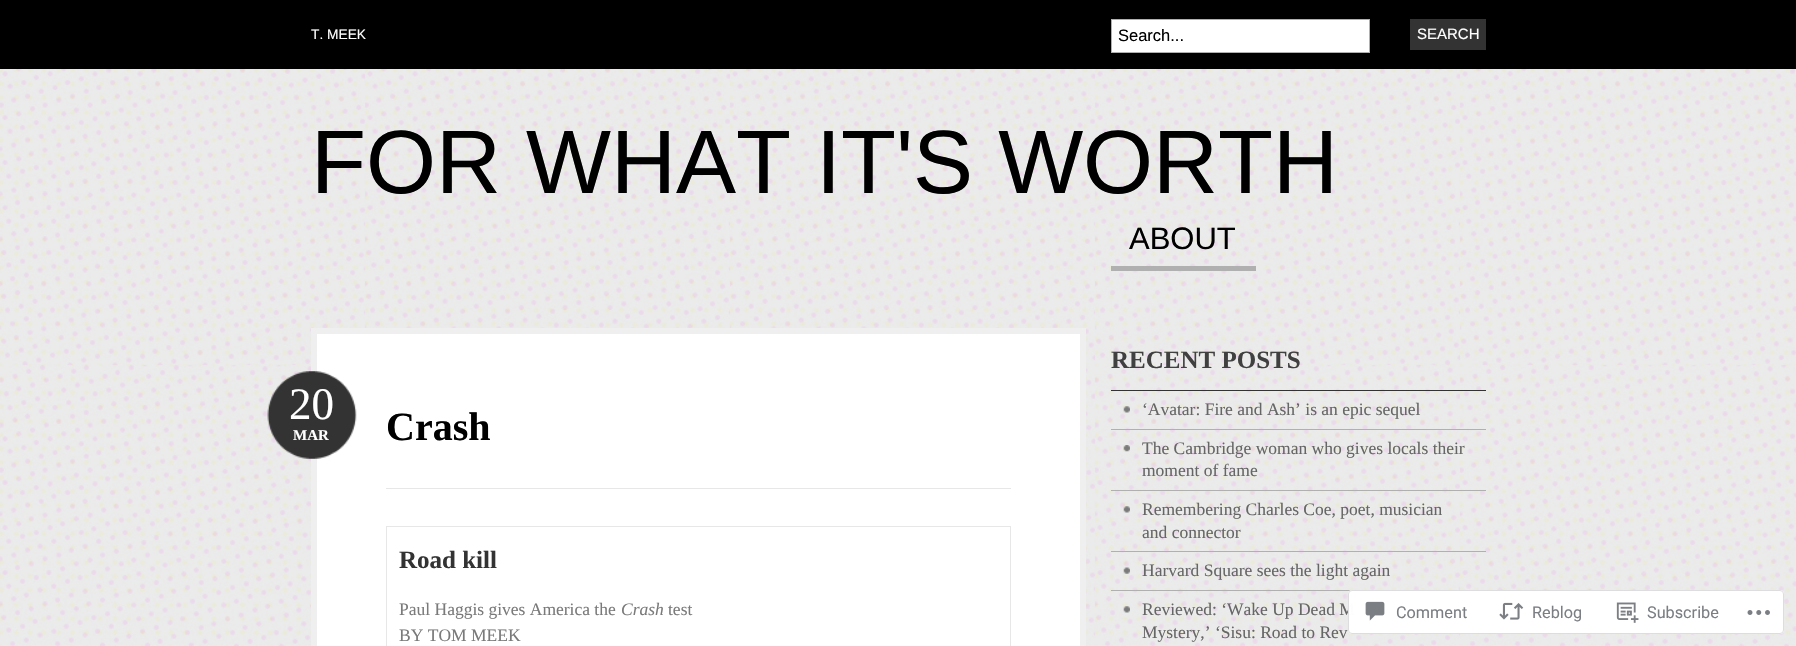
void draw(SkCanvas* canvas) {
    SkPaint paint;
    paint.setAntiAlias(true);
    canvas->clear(0xFFFFFFFF);
    canvas->drawImageRect(SkImages::DeferredFromEncodedData(SkData::MakeFromFileName("img1.png")), SkRect::MakeXYWH(0, 69, 1796, 577), SkSamplingOptions());
    paint.setColor(0xFF000000);
    canvas->drawRect(SkRect::MakeXYWH(0, 0, 1796, 69), paint);
    SkFont font1(fontMgr->matchFamilyStyle("Liberation Sans", SkFontStyle::Normal()), 13.75f);
    font1.setSubpixel(true);
    paint.setColor(0xFFFFFFFF);
    canvas->drawString("T. MEEK", 311, 39, font1, paint);
    canvas->drawRect(SkRect::MakeXYWH(1111.5f, 19.5f, 258, 33), paint);
    paint.setStyle(SkPaint::kStroke_Style);
    paint.setStrokeWidth(1);
    paint.setColor(0xFFB0B0B0);
    canvas->drawRect(SkRect::MakeXYWH(1111.5f, 19.5f, 258, 33), paint);
    SkFont font2(fontMgr->matchFamilyStyle("Liberation Sans", SkFontStyle::Normal()), 16.5f);
    font2.setSubpixel(true);
    paint.setStyle(SkPaint::kFill_Style);
    paint.setColor(0xFF000000);
    canvas->drawString("Search...", 1118, 41, font2, paint);
    paint.setColor(0xFF333333);
    canvas->drawRect(SkRect::MakeXYWH(1410, 19, 76, 31), paint);
    SkFont font3(fontMgr->matchFamilyStyle("Liberation Sans", SkFontStyle::Normal()), 15);
    font3.setSubpixel(true);
    paint.setColor(0xFFFFFFFF);
    canvas->drawString("SEARCH", 1417, 39, font3, paint);
    SkFont font4(fontMgr->matchFamilyStyle("Liberation Sans", SkFontStyle::Normal()), 90);
    font4.setSubpixel(true);
    paint.setColor(0xFF000000);
    canvas->drawString("FOR WHAT IT'S WORTH", 311, 193, font4, paint);
    paint.setColor(0xFFB0B0B0);
    canvas->drawRect(SkRect::MakeXYWH(1111, 266, 145, 5), paint);
    SkFont font5(fontMgr->matchFamilyStyle("Liberation Sans", SkFontStyle::Normal()), 31);
    font5.setSubpixel(true);
    paint.setColor(0xFF000000);
    canvas->drawString("ABOUT", 1129, 249, font5, paint);
    paint.setColor(0xFFFFFFFF);
    canvas->drawRect(SkRect::MakeXYWH(314, 331, 769, 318), paint);
    paint.setStyle(SkPaint::kStroke_Style);
    paint.setStrokeWidth(6);
    paint.setColor(0xFFEFEFEF);
    canvas->drawRect(SkRect::MakeXYWH(314, 331, 769, 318), paint);
    canvas->drawImageRect(SkImages::DeferredFromEncodedData(SkData::MakeFromFileName("img2.png")), SkRect::MakeXYWH(267, 371, 90, 88), SkSamplingOptions());
    SkFont font6(fontMgr->matchFamilyStyle("Liberation Serif", SkFontStyle::Normal()), 45);
    font6.setSubpixel(true);
    paint.setStyle(SkPaint::kFill_Style);
    paint.setColor(0xFFFFFFFF);
    canvas->drawString("20", 289, 419, font6, paint);
    SkFont font7(fontMgr->matchFamilyStyle("Liberation Serif", SkFontStyle::Bold()), 15);
    font7.setSubpixel(true);
    canvas->drawString("MAR", 293, 440, font7, paint);
    paint.setColor(0xFFE7E7E7);
    canvas->drawRect(SkRect::MakeXYWH(386, 488, 625, 1), paint);
    SkFont font8(fontMgr->matchFamilyStyle("Liberation Serif", SkFontStyle::Bold()), 40);
    font8.setSubpixel(true);
    paint.setColor(0xFF000000);
    canvas->drawString("Crash", 386, 440, font8, paint);
    paint.setColor(0xFFE7E7E7);
    canvas->drawRect(SkRect::MakeXYWH(386, 526, 625, 1), paint);
    canvas->drawRect(SkRect::MakeXYWH(1010, 526, 1, 120), paint);
    canvas->drawRect(SkRect::MakeXYWH(386, 526, 1, 120), paint);
    SkFont font9(fontMgr->matchFamilyStyle("Liberation Serif", SkFontStyle::Bold()), 25);
    font9.setSubpixel(true);
    paint.setColor(0xFF333333);
    canvas->drawString("Road kill", 399, 568, font9, paint);
    SkFont font10(fontMgr->matchFamilyStyle("Liberation Serif", SkFontStyle::Normal()), 17.5f);
    font10.setSubpixel(true);
    paint.setColor(0xFF7A7A7A);
    canvas->drawString("Paul Haggis gives America the", 399, 615, font10, paint);
    SkFont font11(fontMgr->matchFamilyStyle("Liberation Serif", SkFontStyle::Italic()), 17.5f);
    font11.setSubpixel(true);
    canvas->drawString("Crash", 621, 615, font11, paint);
    canvas->drawString("test", 668, 615, font10, paint);
    canvas->drawString("BY TOM MEEK", 399, 641, font10, paint);
    paint.setColor(0xFF333333);
    canvas->drawRect(SkRect::MakeXYWH(1111, 390, 375, 1), paint);
    paint.setColor(0xFF404040);
    canvas->drawString("RECENT POSTS", 1111, 368, font9, paint);
    canvas->drawImageRect(SkImages::DeferredFromEncodedData(SkData::MakeFromFileName("img3.png")), SkRect::MakeXYWH(1123, 406, 7, 7), SkSamplingOptions());
    paint.setColor(0xFFB0B0B0);
    canvas->drawRect(SkRect::MakeXYWH(1111, 429, 375, 1), paint);
    paint.setColor(0xFF666666);
    canvas->drawString("‘Avatar: Fire and Ash’ is an epic sequel", 1142, 415, font10, paint);
    canvas->drawImageRect(SkImages::DeferredFromEncodedData(SkData::MakeFromFileName("img4.png")), SkRect::MakeXYWH(1123, 445, 7, 7), SkSamplingOptions());
    paint.setColor(0xFFB0B0B0);
    canvas->drawRect(SkRect::MakeXYWH(1111, 490, 375, 1), paint);
    paint.setColor(0xFF666666);
    canvas->drawString("The Cambridge woman who gives locals their", 1142, 454, font10, paint);
    canvas->drawString("moment of fame", 1142, 476, font10, paint);
    canvas->drawImageRect(SkImages::DeferredFromEncodedData(SkData::MakeFromFileName("img5.png")), SkRect::MakeXYWH(1123, 506, 7, 7), SkSamplingOptions());
    paint.setColor(0xFFB0B0B0);
    canvas->drawRect(SkRect::MakeXYWH(1111, 551, 375, 1), paint);
    paint.setColor(0xFF666666);
    canvas->drawString("Remembering Charles Coe, poet, musician", 1142, 515, font10, paint);
    canvas->drawString("and connector", 1142, 538, font10, paint);
    canvas->drawImageRect(SkImages::DeferredFromEncodedData(SkData::MakeFromFileName("img6.png")), SkRect::MakeXYWH(1123, 567, 7, 7), SkSamplingOptions());
    paint.setColor(0xFFB0B0B0);
    canvas->drawRect(SkRect::MakeXYWH(1111, 590, 375, 1), paint);
    paint.setColor(0xFF666666);
    canvas->drawString("Harvard Square sees the light again", 1142, 576, font10, paint);
    canvas->drawImageRect(SkImages::DeferredFromEncodedData(SkData::MakeFromFileName("img7.png")), SkRect::MakeXYWH(1123, 606, 7, 7), SkSamplingOptions());
    canvas->drawString("Reviewed: ‘Wake Up Dead M", 1142, 615, font10, paint);
    canvas->drawString("Mystery,’ ‘Sisu: Road to Rev", 1142, 638, font10, paint);
    paint.setColor(0xFAFFFFFF);
    canvas->drawRoundRect(SkRect::MakeXYWH(1348, 590, 436, 44), 4, 4, paint);
    paint.setStyle(SkPaint::kStroke_Style);
    paint.setStrokeWidth(1);
    paint.setColor(0xFADCDCDE);
    canvas->drawRoundRect(SkRect::MakeXYWH(1348.5f, 590.5f, 435, 43), 3.5f, 3.5f, paint);
    canvas->drawImageRect(SkImages::DeferredFromEncodedData(SkData::MakeFromFileName("img8.png")), SkRect::MakeXYWH(1365, 601, 20, 20), SkSamplingOptions());
    SkFont font12(fontMgr->matchFamilyStyle("Roboto", SkFontStyle::Normal()), 16.25f);
    font12.setSubpixel(true);
    paint.setStyle(SkPaint::kFill_Style);
    paint.setColor(0xFF7B7F84);
    canvas->drawString("Comment", 1396, 618, font12, paint);
    canvas->drawImageRect(SkImages::DeferredFromEncodedData(SkData::MakeFromFileName("img9.png")), SkRect::MakeXYWH(1499, 602, 25, 18), SkSamplingOptions());
    canvas->drawString("Reblog", 1532, 618, font12, paint);
    canvas->drawImageRect(SkImages::DeferredFromEncodedData(SkData::MakeFromFileName("img10.png")), SkRect::MakeXYWH(1616, 602, 23, 21), SkSamplingOptions());
    canvas->drawString("Subscribe", 1647, 618, font12, paint);
    canvas->drawImageRect(SkImages::DeferredFromEncodedData(SkData::MakeFromFileName("img11.png")), SkRect::MakeXYWH(1747, 610, 23, 5), SkSamplingOptions());
}
